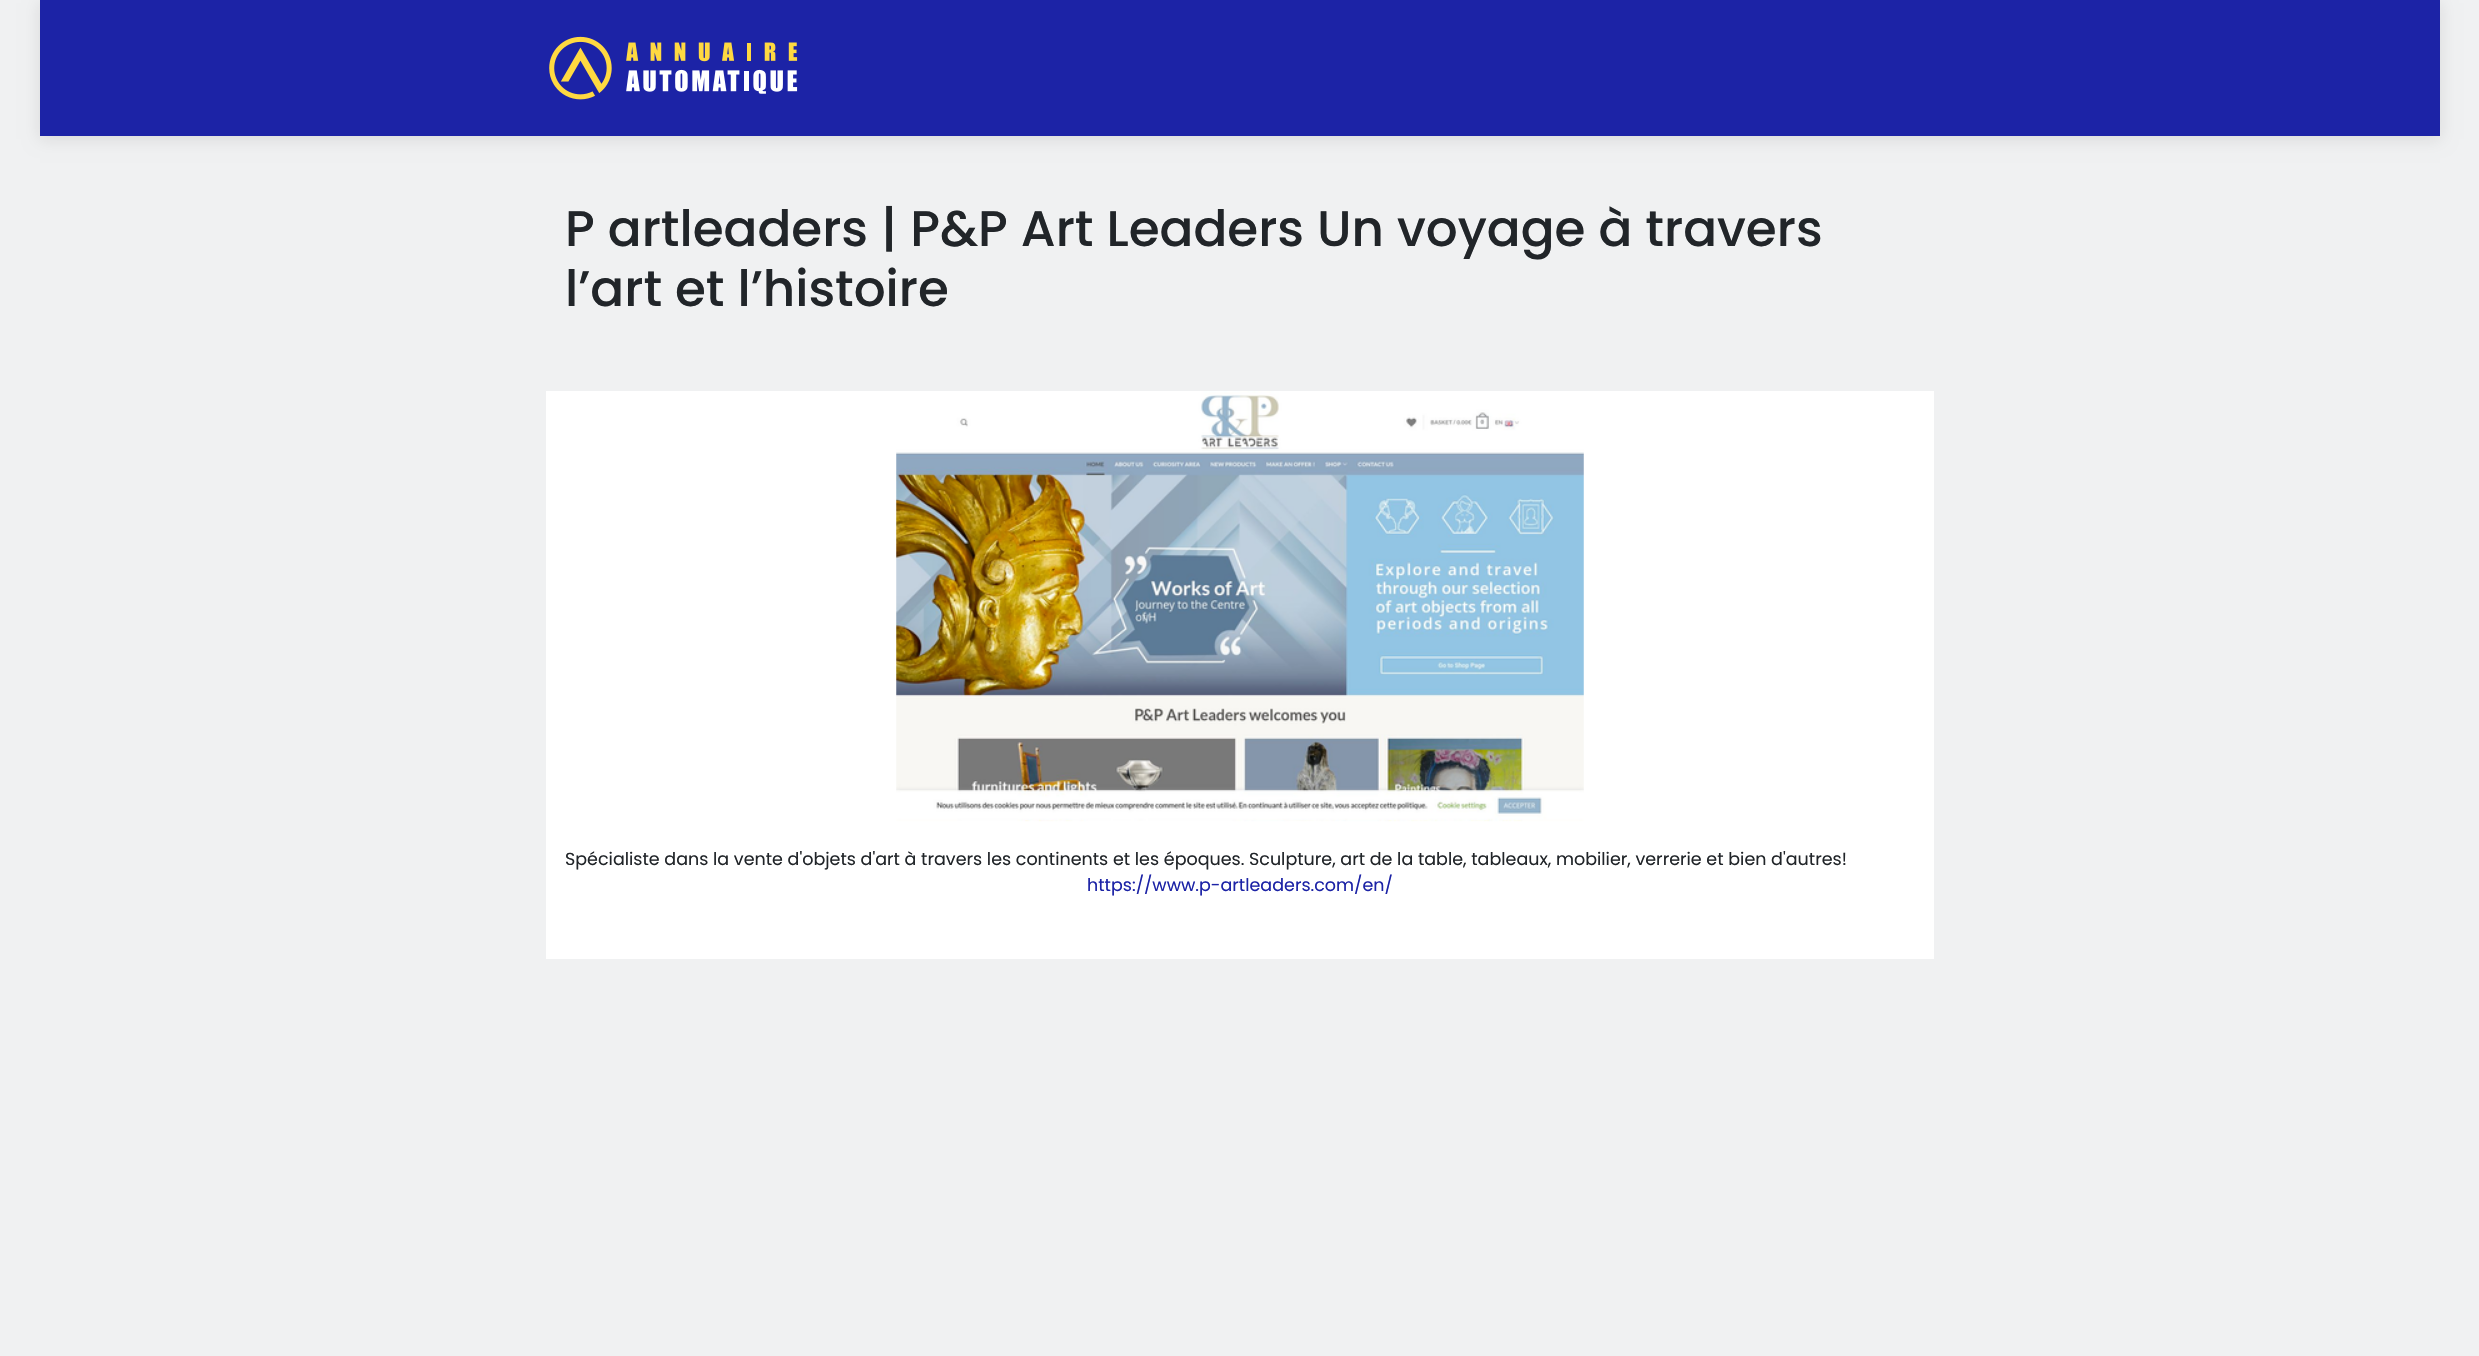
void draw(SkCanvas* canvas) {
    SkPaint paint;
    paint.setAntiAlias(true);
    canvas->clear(0xFFF0F1F2);
    paint.setColor(0x1A000000);
    paint.setMaskFilter(SkMaskFilter::MakeBlur(kNormal_SkBlurStyle, 8));
    canvas->drawRect(SkRect::MakeXYWH(40, 3, 2400, 136), paint);
    paint.setMaskFilter(nullptr);
    paint.setColor(0xFF1C23A6);
    canvas->drawRect(SkRect::MakeXYWH(40, 0, 2400, 136), paint);
    canvas->drawImageRect(SkImages::DeferredFromEncodedData(SkData::MakeFromFileName("img1.png")), SkRect::MakeXYWH(549, 36, 249, 64), SkSamplingOptions());
    SkFont font1(fontMgr->matchFamilyStyle("Poppins", SkFontStyle(500, SkFontStyle::kNormal_Width, SkFontStyle::kUpright_Slant)), 50);
    font1.setSubpixel(true);
    paint.setColor(0xFF212529);
    canvas->drawString("P artleaders | P&P Art Leaders Un voyage à travers", 565, 246, font1, paint);
    canvas->drawString("l’art et l’histoire", 565, 306, font1, paint);
    paint.setColor(0xFFFFFFFF);
    canvas->drawRect(SkRect::MakeXYWH(546, 391, 1388, 568), paint);
    canvas->drawImageRect(SkImages::DeferredFromEncodedData(SkData::MakeFromFileName("img2.png")), SkRect::MakeXYWH(896, 391, 688, 431), SkSamplingOptions());
    SkFont font2(fontMgr->matchFamilyStyle("Poppins", SkFontStyle::Normal()), 17.5f);
    font2.setSubpixel(true);
    paint.setColor(0xFF212529);
    canvas->drawString("Spécialiste dans la vente d'objets d'art à travers les continents et les époques. Sculpture, art de la table, tableaux, mobilier, verrerie et bien d'autres!", 565, 865, font2, paint);
    paint.setColor(0xFF1C23A6);
    canvas->drawString("https://www.p-artleaders.com/en/", 1087, 891, font2, paint);
}
